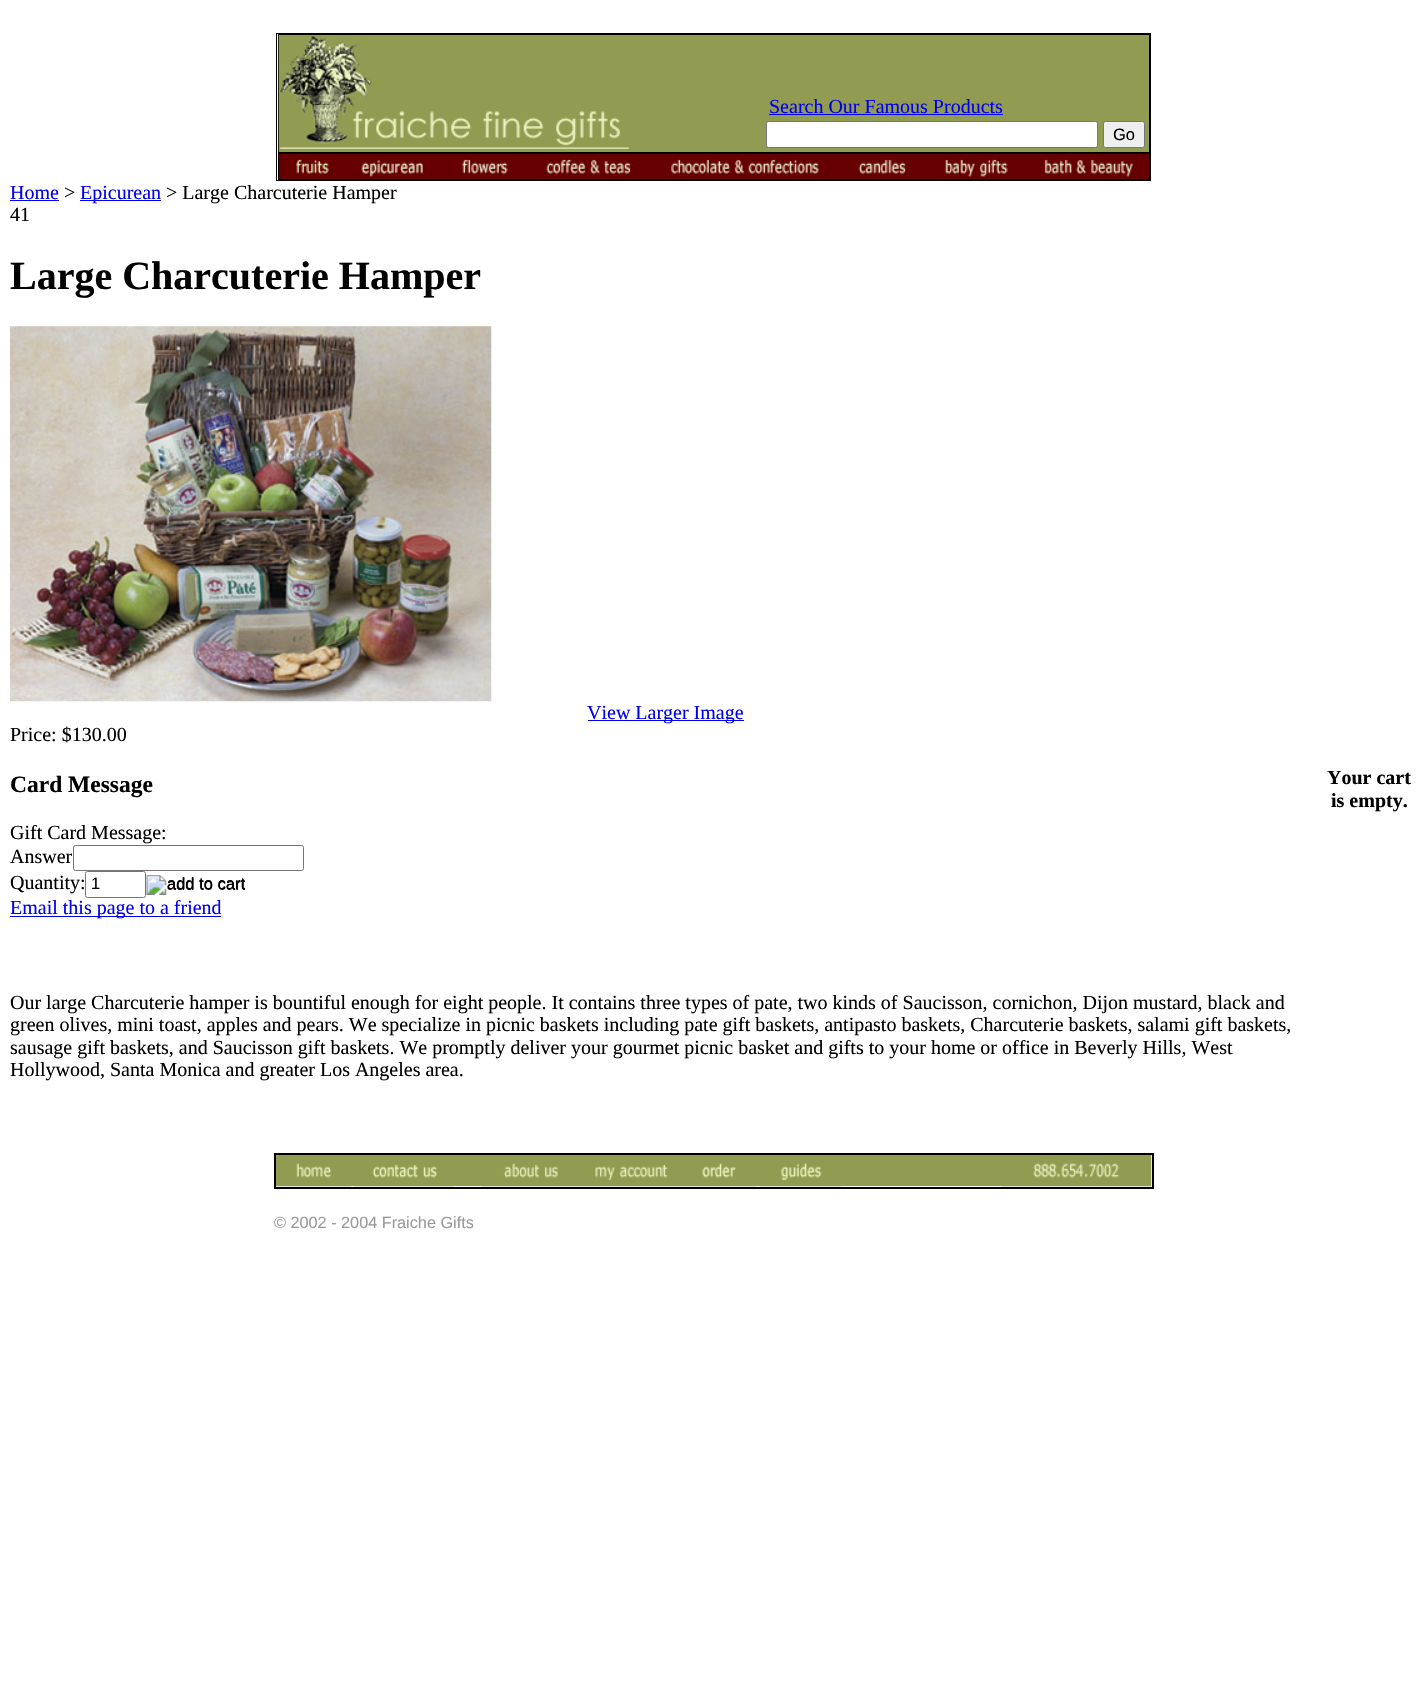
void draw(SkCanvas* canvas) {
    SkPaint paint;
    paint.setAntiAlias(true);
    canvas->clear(0xFFFFFFFF);
    paint.setStyle(SkPaint::kStroke_Style);
    paint.setStrokeWidth(1);
    paint.setColor(0xFF000000);
    canvas->drawRect(SkRect::MakeXYWH(276.5f, 33.5f, 874, 147), paint);
    paint.setStyle(SkPaint::kFill_Style);
    paint.setColor(0xFF919C52);
    canvas->drawRect(SkRect::MakeXYWH(278.5f, 34.5f, 871, 118), paint);
    paint.setStyle(SkPaint::kStroke_Style);
    paint.setColor(0xFF000000);
    canvas->drawRect(SkRect::MakeXYWH(278.5f, 34.5f, 871, 118), paint);
    canvas->drawImageRect(SkImages::DeferredFromEncodedData(SkData::MakeFromFileName("img1.png")), SkRect::MakeXYWH(278, 35, 351, 117), SkSamplingOptions());
    SkFont font1(fontMgr->matchFamilyStyle("Liberation Serif", SkFontStyle::Normal()), 20);
    font1.setSubpixel(true);
    paint.setStyle(SkPaint::kFill_Style);
    paint.setColor(0xFF0000EE);
    canvas->drawString("Search Our Famous Products", 769, 113, font1, paint);
    canvas->drawRect(SkRect::MakeXYWH(769, 114, 234, 1), paint);
    paint.setColor(0xFFFFFFFF);
    canvas->drawRoundRect(SkRect::MakeXYWH(766.5f, 121.5f, 331, 26), 2, 2, paint);
    paint.setStyle(SkPaint::kStroke_Style);
    paint.setColor(0xFF767676);
    canvas->drawRoundRect(SkRect::MakeXYWH(766.5f, 121.5f, 331, 26), 2, 2, paint);
    paint.setStyle(SkPaint::kFill_Style);
    paint.setColor(0xFFEFEFEF);
    canvas->drawRoundRect(SkRect::MakeXYWH(1103.5f, 121.5f, 41, 26), 2, 2, paint);
    paint.setStyle(SkPaint::kStroke_Style);
    paint.setColor(0xFF767676);
    canvas->drawRoundRect(SkRect::MakeXYWH(1103.5f, 121.5f, 41, 26), 2, 2, paint);
    SkFont font2(fontMgr->matchFamilyStyle("Liberation Sans", SkFontStyle::Normal()), 16.5f);
    font2.setSubpixel(true);
    paint.setStyle(SkPaint::kFill_Style);
    paint.setColor(0xFF000000);
    canvas->drawString("Go", 1113, 140, font2, paint);
    paint.setColor(0xFF660000);
    canvas->drawRect(SkRect::MakeXYWH(278.5f, 153.5f, 871, 26), paint);
    paint.setStyle(SkPaint::kStroke_Style);
    paint.setColor(0xFF000000);
    canvas->drawRect(SkRect::MakeXYWH(278.5f, 153.5f, 871, 26), paint);
    canvas->drawImageRect(SkImages::DeferredFromEncodedData(SkData::MakeFromFileName("img2.png")), SkRect::MakeXYWH(280, 153, 63, 21), SkSamplingOptions());
    canvas->drawImageRect(SkImages::DeferredFromEncodedData(SkData::MakeFromFileName("img3.png")), SkRect::MakeXYWH(342, 153, 101, 24), SkSamplingOptions());
    canvas->drawImageRect(SkImages::DeferredFromEncodedData(SkData::MakeFromFileName("img4.png")), SkRect::MakeXYWH(442, 153, 82, 21), SkSamplingOptions());
    canvas->drawImageRect(SkImages::DeferredFromEncodedData(SkData::MakeFromFileName("img5.png")), SkRect::MakeXYWH(523, 153, 126, 21), SkSamplingOptions());
    canvas->drawImageRect(SkImages::DeferredFromEncodedData(SkData::MakeFromFileName("img6.png")), SkRect::MakeXYWH(648, 153, 189, 21), SkSamplingOptions());
    canvas->drawImageRect(SkImages::DeferredFromEncodedData(SkData::MakeFromFileName("img7.png")), SkRect::MakeXYWH(836, 153, 88, 21), SkSamplingOptions());
    canvas->drawImageRect(SkImages::DeferredFromEncodedData(SkData::MakeFromFileName("img8.png")), SkRect::MakeXYWH(923, 153, 101, 24), SkSamplingOptions());
    canvas->drawImageRect(SkImages::DeferredFromEncodedData(SkData::MakeFromFileName("img9.png")), SkRect::MakeXYWH(1023, 153, 126, 24), SkSamplingOptions());
    paint.setStyle(SkPaint::kFill_Style);
    paint.setColor(0xFF0000EE);
    canvas->drawString("Home", 10, 199, font1, paint);
    canvas->drawRect(SkRect::MakeXYWH(10, 200, 49, 1), paint);
    paint.setColor(0xFF000000);
    canvas->drawString(">", 64, 199, font1, paint);
    paint.setColor(0xFF0000EE);
    canvas->drawRect(SkRect::MakeXYWH(80, 200, 81, 1), paint);
    canvas->drawString("Epicurean", 80, 199, font1, paint);
    paint.setColor(0xFF000000);
    canvas->drawString("> Large Charcuterie Hamper", 166, 199, font1, paint);
    canvas->drawString("41", 10, 221, font1, paint);
    SkFont font3(fontMgr->matchFamilyStyle("Liberation Serif", SkFontStyle::Bold()), 40);
    font3.setSubpixel(true);
    canvas->drawString("Large Charcuterie Hamper", 10, 289, font3, paint);
    canvas->drawImageRect(SkImages::DeferredFromEncodedData(SkData::MakeFromFileName("img10.png")), SkRect::MakeXYWH(10, 326, 482, 376), SkSamplingOptions());
    paint.setColor(0xFF0000EE);
    canvas->drawRect(SkRect::MakeXYWH(588, 720, 156, 1), paint);
    canvas->drawString("View Larger Image", 587, 719, font1, paint);
    paint.setColor(0xFF000000);
    canvas->drawString("Price: $130.00", 10, 741, font1, paint);
    SkFont font4(fontMgr->matchFamilyStyle("Liberation Serif", SkFontStyle::Bold()), 23.5f);
    font4.setSubpixel(true);
    canvas->drawString("Card Message", 10, 792, font4, paint);
    canvas->drawString("Gift Card Message:", 10, 839, font1, paint);
    canvas->drawString("Answer", 10, 863, font1, paint);
    paint.setStyle(SkPaint::kStroke_Style);
    paint.setColor(0xFF767676);
    canvas->drawRoundRect(SkRect::MakeXYWH(73.5f, 845.5f, 230, 25), 2, 2, paint);
    paint.setStyle(SkPaint::kFill_Style);
    paint.setColor(0xFF000000);
    canvas->drawString("Quantity:", 10, 889, font1, paint);
    paint.setStyle(SkPaint::kStroke_Style);
    paint.setColor(0xFF767676);
    canvas->drawRoundRect(SkRect::MakeXYWH(85.5f, 871.5f, 60, 26), 2, 2, paint);
    paint.setStyle(SkPaint::kFill_Style);
    paint.setColor(0xFF000000);
    canvas->drawString("1", 91, 889, font2, paint);
    canvas->drawImageRect(SkImages::DeferredFromEncodedData(SkData::MakeFromFileName("img11.png")), SkRect::MakeXYWH(146, 875, 99, 20), SkSamplingOptions());
    canvas->drawString("add to cart", 167, 889, font2, paint);
    paint.setColor(0xFF0000EE);
    canvas->drawRect(SkRect::MakeXYWH(10, 916, 211, 1), paint);
    canvas->drawString("Email this page to a friend", 10, 914, font1, paint);
    paint.setColor(0xFF000000);
    canvas->drawString("Our large Charcuterie hamper is bountiful enough for eight people. It contains three types of pate, two kinds of Saucisson, cornichon, Dijon mustard, black and", 10, 1009, font1, paint);
    canvas->drawString("green olives, mini toast, apples and pears. We specialize in picnic baskets including pate gift baskets, antipasto baskets, Charcuterie baskets, salami gift baskets,", 10, 1031, font1, paint);
    canvas->drawString("sausage gift baskets, and Saucisson gift baskets. We promptly deliver your gourmet picnic basket and gifts to your home or office in Beverly Hills, West", 10, 1054, font1, paint);
    canvas->drawString("Hollywood, Santa Monica and greater Los Angeles area.", 10, 1076, font1, paint);
    SkFont font5(fontMgr->matchFamilyStyle("Liberation Serif", SkFontStyle::Bold()), 20);
    font5.setSubpixel(true);
    canvas->drawString("Your cart", 1327, 784, font5, paint);
    canvas->drawString("is empty.", 1331, 807, font5, paint);
    paint.setStyle(SkPaint::kStroke_Style);
    canvas->drawRect(SkRect::MakeXYWH(274.5f, 1153.5f, 879, 35), paint);
    canvas->drawRect(SkRect::MakeXYWH(275.5f, 1154.5f, 877, 33), paint);
    paint.setStyle(SkPaint::kFill_Style);
    paint.setColor(0xFF919C52);
    canvas->drawRect(SkRect::MakeXYWH(276, 1155, 726, 31), paint);
    canvas->drawImageRect(SkImages::DeferredFromEncodedData(SkData::MakeFromFileName("img12.png")), SkRect::MakeXYWH(276, 1163, 76, 24), SkSamplingOptions());
    canvas->drawImageRect(SkImages::DeferredFromEncodedData(SkData::MakeFromFileName("img13.png")), SkRect::MakeXYWH(353, 1165, 101, 22), SkSamplingOptions());
    canvas->drawImageRect(SkImages::DeferredFromEncodedData(SkData::MakeFromFileName("img14.png")), SkRect::MakeXYWH(481, 1163, 101, 24), SkSamplingOptions());
    canvas->drawImageRect(SkImages::DeferredFromEncodedData(SkData::MakeFromFileName("img15.png")), SkRect::MakeXYWH(581, 1164, 101, 23), SkSamplingOptions());
    canvas->drawImageRect(SkImages::DeferredFromEncodedData(SkData::MakeFromFileName("img16.png")), SkRect::MakeXYWH(681, 1163, 76, 24), SkSamplingOptions());
    canvas->drawImageRect(SkImages::DeferredFromEncodedData(SkData::MakeFromFileName("img17.png")), SkRect::MakeXYWH(760, 1163, 82, 24), SkSamplingOptions());
    canvas->drawImageRect(SkImages::DeferredFromEncodedData(SkData::MakeFromFileName("img18.png")), SkRect::MakeXYWH(1001, 1155, 151, 32), SkSamplingOptions());
    SkFont font6(fontMgr->matchFamilyStyle("Liberation Sans", SkFontStyle::Normal()), 16.25f);
    font6.setSubpixel(true);
    paint.setColor(0xFF999999);
    canvas->drawString("© 2002 - 2004 Fraiche Gifts", 274, 1228, font6, paint);
}
